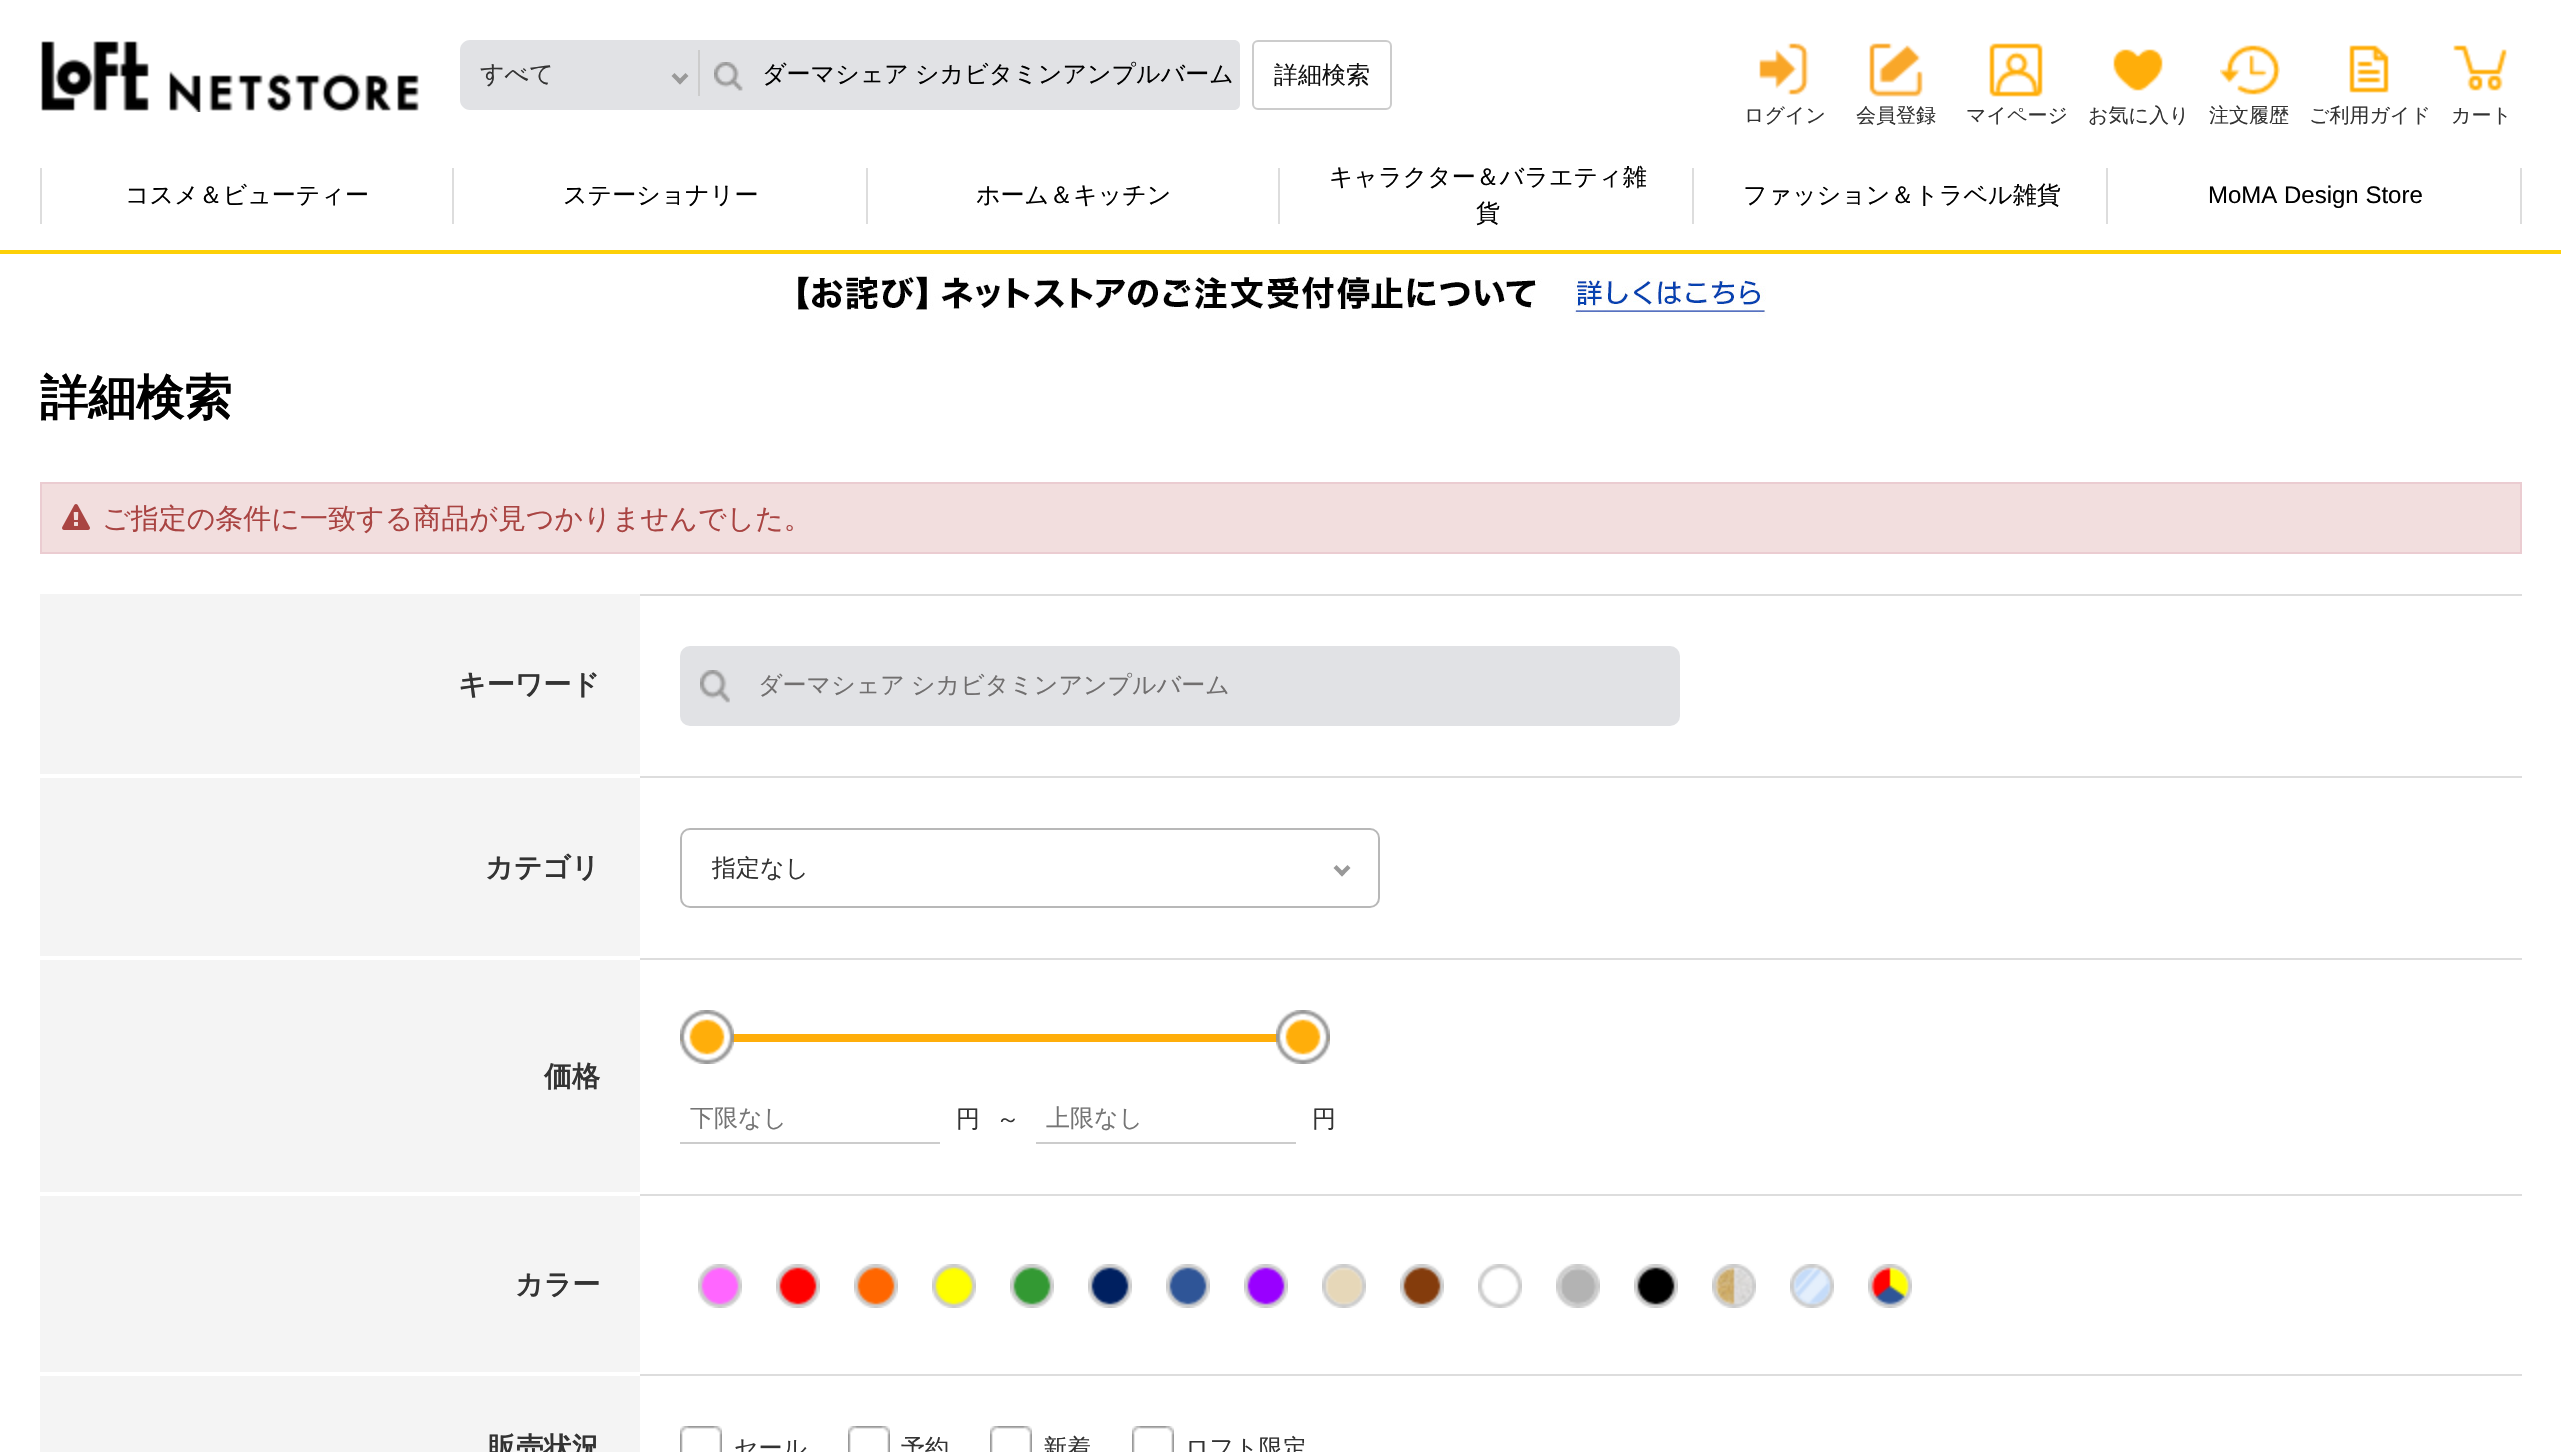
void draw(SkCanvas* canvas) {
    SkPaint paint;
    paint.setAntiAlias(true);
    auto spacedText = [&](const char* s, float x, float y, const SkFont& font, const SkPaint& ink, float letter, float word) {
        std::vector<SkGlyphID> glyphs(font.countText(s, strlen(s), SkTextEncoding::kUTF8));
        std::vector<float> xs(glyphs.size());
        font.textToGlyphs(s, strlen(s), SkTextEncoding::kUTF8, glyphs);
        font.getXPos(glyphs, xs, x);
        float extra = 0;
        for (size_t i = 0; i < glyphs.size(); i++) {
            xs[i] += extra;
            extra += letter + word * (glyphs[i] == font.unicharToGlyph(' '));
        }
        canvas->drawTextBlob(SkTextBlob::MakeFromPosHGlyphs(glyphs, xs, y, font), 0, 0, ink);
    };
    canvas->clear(0xFFFFFFFF);
    paint.setColor(0xFFFDD007);
    canvas->drawRect(SkRect::MakeXYWH(0, 250, 2561, 4), paint);
    canvas->drawImageRect(SkImages::DeferredFromEncodedData(SkData::MakeFromFileName("img1.png")), SkRect::MakeXYWH(41, 41, 378, 71), SkSamplingOptions());
    paint.setColor(0xFFE1E2E5);
    canvas->drawPath(SkPathBuilder().moveTo(470, 40).lineTo(700, 40).lineTo(700, 110).lineTo(470, 110).cubicTo(464.5f, 110, 460, 105.5f, 460, 100).lineTo(460, 50).cubicTo(460, 44.5f, 464.5f, 40, 470, 40).close().detach(), paint);
    SkFont font1(fontMgr->matchFamilyStyle("WenQuanYi Zen Hei", SkFontStyle(500, SkFontStyle::kNormal_Width, SkFontStyle::kUpright_Slant)), 24);
    font1.setSubpixel(true);
    paint.setColor(0xFF333333);
    canvas->drawString("すべて", 480, 82, font1, paint);
    paint.setColor(0xFF999999);
    canvas->drawPath(SkPathBuilder().moveTo(685.5f, 73).lineTo(688.5f, 76).lineTo(680, 84.5f).lineTo(677, 81.5f).close().detach(), paint);
    canvas->drawPath(SkPathBuilder().moveTo(674.5f, 73).lineTo(683, 81.5f).lineTo(680, 84.5f).lineTo(671.5f, 76).close().detach(), paint);
    paint.setColor(0xFFCCCCCC);
    canvas->drawRect(SkRect::MakeXYWH(698, 50, 2, 46), paint);
    paint.setColor(0xFFE1E2E5);
    canvas->drawPath(SkPathBuilder().moveTo(700, 40).lineTo(1234, 40).cubicTo(1237.5f, 40, 1240, 42.5f, 1240, 46).lineTo(1240, 104).cubicTo(1240, 107.5f, 1237.5f, 110, 1234, 110).lineTo(700, 110).close().detach(), paint);
    canvas->drawImageRect(SkImages::DeferredFromEncodedData(SkData::MakeFromFileName("img2.png")), SkRect::MakeXYWH(714, 62, 29, 29), SkSamplingOptions());
    paint.setColor(0xFF000000);
    spacedText("ダーマシェア シカビタミンアンプルバーム", 762, 82, font1, paint, 0, -1);
    paint.setStyle(SkPaint::kStroke_Style);
    paint.setStrokeWidth(2);
    paint.setColor(0xFFCCCCCC);
    canvas->drawRoundRect(SkRect::MakeXYWH(1253, 41, 138, 68), 5, 5, paint);
    paint.setStyle(SkPaint::kFill_Style);
    paint.setColor(0xFF111111);
    canvas->drawString("詳細検索", 1274, 83, font1, paint);
    canvas->drawImageRect(SkImages::DeferredFromEncodedData(SkData::MakeFromFileName("img3.png")), SkRect::MakeXYWH(1759, 43, 50, 52), SkSamplingOptions());
    SkFont font2(fontMgr->matchFamilyStyle("WenQuanYi Zen Hei", SkFontStyle(500, SkFontStyle::kNormal_Width, SkFontStyle::kUpright_Slant)), 20);
    font2.setSubpixel(true);
    paint.setColor(0xFF333333);
    canvas->drawString("ログイン", 1744, 122, font2, paint);
    canvas->drawImageRect(SkImages::DeferredFromEncodedData(SkData::MakeFromFileName("img4.png")), SkRect::MakeXYWH(1869, 43, 54, 54), SkSamplingOptions());
    canvas->drawString("会員登録", 1856, 122, font2, paint);
    canvas->drawImageRect(SkImages::DeferredFromEncodedData(SkData::MakeFromFileName("img5.png")), SkRect::MakeXYWH(1989, 43, 54, 54), SkSamplingOptions());
    canvas->drawString("マイページ", 1966, 122, font2, paint);
    canvas->drawImageRect(SkImages::DeferredFromEncodedData(SkData::MakeFromFileName("img6.png")), SkRect::MakeXYWH(2113, 49, 50, 42), SkSamplingOptions());
    canvas->drawString("お気に入り", 2088, 122, font2, paint);
    canvas->drawImageRect(SkImages::DeferredFromEncodedData(SkData::MakeFromFileName("img7.png")), SkRect::MakeXYWH(2220, 45, 60, 50), SkSamplingOptions());
    canvas->drawString("注文履歴", 2209, 122, font2, paint);
    canvas->drawImageRect(SkImages::DeferredFromEncodedData(SkData::MakeFromFileName("img8.png")), SkRect::MakeXYWH(2349, 45, 40, 48), SkSamplingOptions());
    canvas->drawString("ご利用ガイド", 2309, 122, font2, paint);
    canvas->drawImageRect(SkImages::DeferredFromEncodedData(SkData::MakeFromFileName("img9.png")), SkRect::MakeXYWH(2453, 45, 54, 46), SkSamplingOptions());
    canvas->drawString("カート", 2451, 122, font2, paint);
    paint.setColor(0xFFDDDDDD);
    canvas->drawRect(SkRect::MakeXYWH(40, 168, 2, 56), paint);
    paint.setColor(0xFF000000);
    canvas->drawString("コスメ＆ビューティー", 125, 203, font1, paint);
    paint.setColor(0xFFDDDDDD);
    canvas->drawRect(SkRect::MakeXYWH(452, 168, 2, 56), paint);
    paint.setColor(0xFF000000);
    canvas->drawString("ステーショナリー", 563, 203, font1, paint);
    paint.setColor(0xFFDDDDDD);
    canvas->drawRect(SkRect::MakeXYWH(866, 168, 2, 56), paint);
    paint.setColor(0xFF000000);
    canvas->drawString("ホーム＆キッチン", 976, 203, font1, paint);
    paint.setColor(0xFFDDDDDD);
    canvas->drawRect(SkRect::MakeXYWH(1278, 168, 2, 56), paint);
    paint.setColor(0xFF000000);
    canvas->drawString("キャラクター＆バラエティ雑", 1329, 185, font1, paint);
    canvas->drawString("貨", 1476, 221, font1, paint);
    paint.setColor(0xFFDDDDDD);
    canvas->drawRect(SkRect::MakeXYWH(1692, 168, 2, 56), paint);
    paint.setColor(0xFF000000);
    canvas->drawString("ファッション＆トラベル雑貨", 1743, 203, font1, paint);
    paint.setColor(0xFFDDDDDD);
    canvas->drawRect(SkRect::MakeXYWH(2106, 168, 2, 56), paint);
    SkFont font3(fontMgr->matchFamilyStyle("Liberation Sans", SkFontStyle::Normal()), 24);
    font3.setSubpixel(true);
    paint.setColor(0xFF000000);
    canvas->drawString("MoMA Design Store", 2208, 203, font3, paint);
    paint.setColor(0xFFDDDDDD);
    canvas->drawRect(SkRect::MakeXYWH(2520, 168, 2, 56), paint);
    canvas->drawImageRect(SkImages::DeferredFromEncodedData(SkData::MakeFromFileName("img10.png")), SkRect::MakeXYWH(798, 270, 968, 48), SkSamplingOptions());
    SkFont font4(fontMgr->matchFamilyStyle("WenQuanYi Zen Hei", SkFontStyle::Bold()), 48);
    font4.setSubpixel(true);
    paint.setColor(0xFF000000);
    canvas->drawString("詳細検索", 40, 414, font4, paint);
    paint.setColor(0xFFF2DEDE);
    canvas->drawRect(SkRect::MakeXYWH(41, 483, 2480, 70), paint);
    paint.setStyle(SkPaint::kStroke_Style);
    paint.setColor(0xFFEBCCD1);
    canvas->drawRect(SkRect::MakeXYWH(41, 483, 2480, 70), paint);
    canvas->drawImageRect(SkImages::DeferredFromEncodedData(SkData::MakeFromFileName("img11.png")), SkRect::MakeXYWH(62, 504, 28, 26), SkSamplingOptions());
    SkFont font5(fontMgr->matchFamilyStyle("WenQuanYi Zen Hei", SkFontStyle(500, SkFontStyle::kNormal_Width, SkFontStyle::kUpright_Slant)), 28);
    font5.setSubpixel(true);
    paint.setStyle(SkPaint::kFill_Style);
    paint.setColor(0xFFA94442);
    canvas->drawString("ご指定の条件に一致する商品が見つかりませんでした。", 102, 528, font5, paint);
    paint.setColor(0xFFF4F4F4);
    canvas->drawRect(SkRect::MakeXYWH(40, 594, 600, 180), paint);
    SkFont font6(fontMgr->matchFamilyStyle("WenQuanYi Zen Hei", SkFontStyle::Bold()), 28);
    font6.setSubpixel(true);
    paint.setColor(0xFF333333);
    canvas->drawString("キーワード", 458, 694, font6, paint);
    paint.setColor(0xFFDDDDDD);
    canvas->drawRect(SkRect::MakeXYWH(640, 594, 1882, 2), paint);
    canvas->drawRect(SkRect::MakeXYWH(640, 776, 1882, 2), paint);
    paint.setColor(0xFFE1E2E5);
    canvas->drawRoundRect(SkRect::MakeXYWH(680, 646, 1000, 80), 10, 10, paint);
    canvas->drawImageRect(SkImages::DeferredFromEncodedData(SkData::MakeFromFileName("img12.png")), SkRect::MakeXYWH(700, 670, 30, 33), SkSamplingOptions());
    paint.setColor(0xFF716F6F);
    spacedText("ダーマシェア シカビタミンアンプルバーム", 758, 693, font1, paint, 0, -1);
    paint.setColor(0xFFF4F4F4);
    canvas->drawRect(SkRect::MakeXYWH(40, 778, 600, 178), paint);
    paint.setColor(0xFF333333);
    canvas->drawString("カテゴリ", 485, 877, font6, paint);
    paint.setColor(0xFFDDDDDD);
    canvas->drawRect(SkRect::MakeXYWH(640, 958, 1882, 2), paint);
    paint.setStyle(SkPaint::kStroke_Style);
    paint.setColor(0xFFB8B8B8);
    canvas->drawRoundRect(SkRect::MakeXYWH(681, 829, 698, 78), 9, 9, paint);
    paint.setStyle(SkPaint::kFill_Style);
    paint.setColor(0xFF333333);
    canvas->drawString("指定なし", 712, 876, font1, paint);
    paint.setColor(0xFF999999);
    canvas->drawPath(SkPathBuilder().moveTo(1347.5f, 865).lineTo(1350.5f, 868).lineTo(1342, 876.5f).lineTo(1339, 873.5f).close().detach(), paint);
    canvas->drawPath(SkPathBuilder().moveTo(1336.5f, 865).lineTo(1345, 873.5f).lineTo(1342, 876.5f).lineTo(1333.5f, 868).close().detach(), paint);
    paint.setColor(0xFFF4F4F4);
    canvas->drawRect(SkRect::MakeXYWH(40, 960, 600, 232), paint);
    paint.setColor(0xFF333333);
    canvas->drawString("価格", 544, 1086, font6, paint);
    paint.setColor(0xFFDDDDDD);
    canvas->drawRect(SkRect::MakeXYWH(640, 1194, 1882, 2), paint);
    paint.setColor(0xFFFFAE0A);
    canvas->drawRoundRect(SkRect::MakeXYWH(680, 1034, 650, 8), 4, 4, paint);
    canvas->drawImageRect(SkImages::DeferredFromEncodedData(SkData::MakeFromFileName("img13.png")), SkRect::MakeXYWH(680, 1010, 54, 54), SkSamplingOptions());
    canvas->drawImageRect(SkImages::DeferredFromEncodedData(SkData::MakeFromFileName("img14.png")), SkRect::MakeXYWH(1276, 1010, 54, 54), SkSamplingOptions());
    paint.setColor(0xFFCCCCCC);
    canvas->drawRect(SkRect::MakeXYWH(680, 1142, 260, 2), paint);
    paint.setColor(0xFF757575);
    canvas->drawString("下限なし", 690, 1126, font1, paint);
    paint.setColor(0xFF333333);
    canvas->drawString("円", 956, 1127, font1, paint);
    canvas->drawString("～", 996, 1127, font1, paint);
    paint.setColor(0xFFCCCCCC);
    canvas->drawRect(SkRect::MakeXYWH(1036, 1142, 260, 2), paint);
    paint.setColor(0xFF757575);
    canvas->drawString("上限なし", 1046, 1126, font1, paint);
    paint.setColor(0xFF333333);
    canvas->drawString("円", 1312, 1127, font1, paint);
    paint.setColor(0xFFF4F4F4);
    canvas->drawRect(SkRect::MakeXYWH(40, 1196, 600, 176), paint);
    paint.setColor(0xFF333333);
    canvas->drawString("カラー", 515, 1294, font6, paint);
    paint.setColor(0xFFDDDDDD);
    canvas->drawRect(SkRect::MakeXYWH(640, 1374, 1882, 2), paint);
    canvas->drawImageRect(SkImages::DeferredFromEncodedData(SkData::MakeFromFileName("img15.png")), SkRect::MakeXYWH(698, 1264, 44, 44), SkSamplingOptions());
    canvas->drawImageRect(SkImages::DeferredFromEncodedData(SkData::MakeFromFileName("img16.png")), SkRect::MakeXYWH(776, 1264, 44, 44), SkSamplingOptions());
    canvas->drawImageRect(SkImages::DeferredFromEncodedData(SkData::MakeFromFileName("img17.png")), SkRect::MakeXYWH(854, 1264, 44, 44), SkSamplingOptions());
    canvas->drawImageRect(SkImages::DeferredFromEncodedData(SkData::MakeFromFileName("img18.png")), SkRect::MakeXYWH(932, 1264, 44, 44), SkSamplingOptions());
    canvas->drawImageRect(SkImages::DeferredFromEncodedData(SkData::MakeFromFileName("img19.png")), SkRect::MakeXYWH(1010, 1264, 44, 44), SkSamplingOptions());
    canvas->drawImageRect(SkImages::DeferredFromEncodedData(SkData::MakeFromFileName("img20.png")), SkRect::MakeXYWH(1088, 1264, 44, 44), SkSamplingOptions());
    canvas->drawImageRect(SkImages::DeferredFromEncodedData(SkData::MakeFromFileName("img21.png")), SkRect::MakeXYWH(1166, 1264, 44, 44), SkSamplingOptions());
    canvas->drawImageRect(SkImages::DeferredFromEncodedData(SkData::MakeFromFileName("img22.png")), SkRect::MakeXYWH(1244, 1264, 44, 44), SkSamplingOptions());
    canvas->drawImageRect(SkImages::DeferredFromEncodedData(SkData::MakeFromFileName("img23.png")), SkRect::MakeXYWH(1322, 1264, 44, 44), SkSamplingOptions());
    canvas->drawImageRect(SkImages::DeferredFromEncodedData(SkData::MakeFromFileName("img24.png")), SkRect::MakeXYWH(1400, 1264, 44, 44), SkSamplingOptions());
    canvas->drawImageRect(SkImages::DeferredFromEncodedData(SkData::MakeFromFileName("img25.png")), SkRect::MakeXYWH(1478, 1264, 44, 44), SkSamplingOptions());
    canvas->drawImageRect(SkImages::DeferredFromEncodedData(SkData::MakeFromFileName("img26.png")), SkRect::MakeXYWH(1556, 1264, 44, 44), SkSamplingOptions());
    canvas->drawImageRect(SkImages::DeferredFromEncodedData(SkData::MakeFromFileName("img27.png")), SkRect::MakeXYWH(1634, 1264, 44, 44), SkSamplingOptions());
    canvas->drawImageRect(SkImages::DeferredFromEncodedData(SkData::MakeFromFileName("img28.png")), SkRect::MakeXYWH(1712, 1264, 44, 44), SkSamplingOptions());
    canvas->drawImageRect(SkImages::DeferredFromEncodedData(SkData::MakeFromFileName("img29.png")), SkRect::MakeXYWH(1790, 1264, 44, 44), SkSamplingOptions());
    canvas->drawImageRect(SkImages::DeferredFromEncodedData(SkData::MakeFromFileName("img30.png")), SkRect::MakeXYWH(1868, 1264, 44, 44), SkSamplingOptions());
    paint.setColor(0xFFF4F4F4);
    canvas->drawRect(SkRect::MakeXYWH(40, 1376, 600, 76), paint);
    paint.setColor(0xFF333333);
    canvas->drawString("販売状況", 488, 1457, font6, paint);
    canvas->drawImageRect(SkImages::DeferredFromEncodedData(SkData::MakeFromFileName("img31.png")), SkRect::MakeXYWH(680, 1426, 42, 26), SkSamplingOptions());
    canvas->drawString("セール", 734, 1456, font1, paint);
    canvas->drawImageRect(SkImages::DeferredFromEncodedData(SkData::MakeFromFileName("img31.png")), SkRect::MakeXYWH(848, 1426, 42, 26), SkSamplingOptions());
    canvas->drawString("予約", 901, 1456, font1, paint);
    canvas->drawImageRect(SkImages::DeferredFromEncodedData(SkData::MakeFromFileName("img31.png")), SkRect::MakeXYWH(990, 1426, 42, 26), SkSamplingOptions());
    canvas->drawString("新着", 1043, 1456, font1, paint);
    canvas->drawImageRect(SkImages::DeferredFromEncodedData(SkData::MakeFromFileName("img31.png")), SkRect::MakeXYWH(1132, 1426, 42, 26), SkSamplingOptions());
    canvas->drawString("ロフト限定", 1185, 1456, font1, paint);
}
